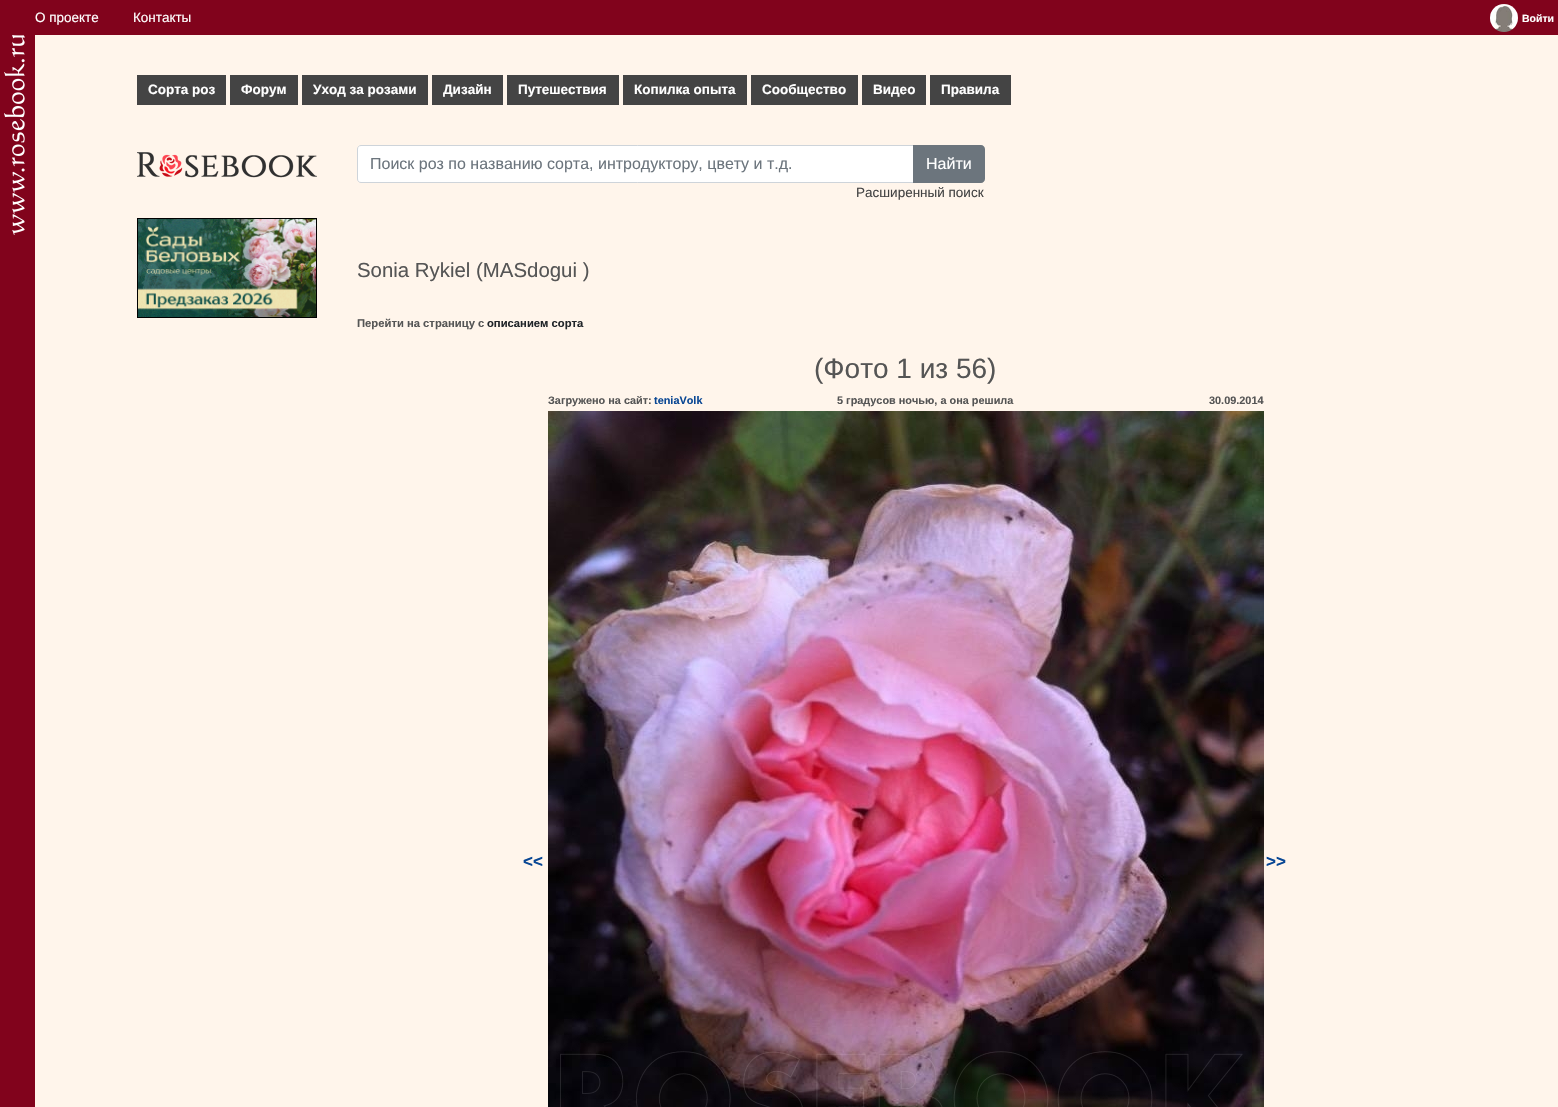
void draw(SkCanvas* canvas) {
    SkPaint paint;
    paint.setAntiAlias(true);
    canvas->clear(0xFFFFF5EB);
    paint.setColor(0xFF81031C);
    canvas->drawRect(SkRect::MakeXYWH(0, 0, 35, 1107), paint);
    canvas->drawImageRect(SkImages::DeferredFromEncodedData(SkData::MakeFromFileName("img1.png")), SkRect::MakeXYWH(4, 35, 21, 200), SkSamplingOptions());
    canvas->drawRect(SkRect::MakeXYWH(35, 0, 1523, 35), paint);
    SkFont font1(fontMgr->matchFamilyStyle("Liberation Sans", SkFontStyle::Normal()), 13.5f);
    font1.setSubpixel(true);
    paint.setColor(0xFFFFFFFF);
    canvas->drawString("О проекте", 35, 22, font1, paint);
    canvas->drawString("Контакты", 133, 22, font1, paint);
    canvas->drawImageRect(SkImages::DeferredFromEncodedData(SkData::MakeFromFileName("img2.png")), SkRect::MakeXYWH(1490, 4, 28, 28), SkSamplingOptions());
    SkFont font2(fontMgr->matchFamilyStyle("Liberation Sans", SkFontStyle::Bold()), 10.5f);
    font2.setSubpixel(true);
    canvas->drawString("Войти", 1522, 22, font2, paint);
    paint.setColor(0xFF444444);
    canvas->drawRect(SkRect::MakeXYWH(137, 75, 89, 30), paint);
    SkFont font3(fontMgr->matchFamilyStyle("Liberation Sans", SkFontStyle::Bold()), 13.5f);
    font3.setSubpixel(true);
    paint.setColor(0xFFFFFFFF);
    canvas->drawString("Сорта роз", 148, 94, font3, paint);
    paint.setColor(0xFF444444);
    canvas->drawRect(SkRect::MakeXYWH(230, 75, 68, 30), paint);
    paint.setColor(0xFFFFFFFF);
    canvas->drawString("Форум", 241, 94, font3, paint);
    paint.setColor(0xFF444444);
    canvas->drawRect(SkRect::MakeXYWH(302, 75, 126, 30), paint);
    paint.setColor(0xFFFFFFFF);
    canvas->drawString("Уход за розами", 313, 94, font3, paint);
    paint.setColor(0xFF444444);
    canvas->drawRect(SkRect::MakeXYWH(432, 75, 71, 30), paint);
    paint.setColor(0xFFFFFFFF);
    canvas->drawString("Дизайн", 443, 94, font3, paint);
    paint.setColor(0xFF444444);
    canvas->drawRect(SkRect::MakeXYWH(507, 75, 112, 30), paint);
    paint.setColor(0xFFFFFFFF);
    canvas->drawString("Путешествия", 518, 94, font3, paint);
    paint.setColor(0xFF444444);
    canvas->drawRect(SkRect::MakeXYWH(623, 75, 124, 30), paint);
    paint.setColor(0xFFFFFFFF);
    canvas->drawString("Копилка опыта", 634, 94, font3, paint);
    paint.setColor(0xFF444444);
    canvas->drawRect(SkRect::MakeXYWH(751, 75, 107, 30), paint);
    paint.setColor(0xFFFFFFFF);
    canvas->drawString("Сообщество", 762, 94, font3, paint);
    paint.setColor(0xFF444444);
    canvas->drawRect(SkRect::MakeXYWH(862, 75, 64, 30), paint);
    paint.setColor(0xFFFFFFFF);
    canvas->drawString("Видео", 873, 94, font3, paint);
    paint.setColor(0xFF444444);
    canvas->drawRect(SkRect::MakeXYWH(930, 75, 81, 30), paint);
    paint.setColor(0xFFFFFFFF);
    canvas->drawString("Правила", 941, 94, font3, paint);
    canvas->drawImageRect(SkImages::DeferredFromEncodedData(SkData::MakeFromFileName("img3.png")), SkRect::MakeXYWH(137, 152, 180, 26), SkSamplingOptions());
    paint.setStyle(SkPaint::kStroke_Style);
    paint.setStrokeWidth(1);
    paint.setColor(0xFF000000);
    canvas->drawRect(SkRect::MakeXYWH(137.5f, 218.5f, 179, 99), paint);
    canvas->drawImageRect(SkImages::DeferredFromEncodedData(SkData::MakeFromFileName("img4.png")), SkRect::MakeXYWH(138, 219, 178, 98), SkSamplingOptions());
    paint.setStyle(SkPaint::kFill_Style);
    paint.setColor(0xFFFFFFFF);
    canvas->drawPath(SkPathBuilder().moveTo(361, 145.5f).lineTo(913.5f, 145.5f).lineTo(913.5f, 182.5f).lineTo(361, 182.5f).cubicTo(359, 182.5f, 357.5f, 181, 357.5f, 179).lineTo(357.5f, 149).cubicTo(357.5f, 147, 359, 145.5f, 361, 145.5f).close().detach(), paint);
    paint.setStyle(SkPaint::kStroke_Style);
    paint.setColor(0xFFCED4DA);
    canvas->drawPath(SkPathBuilder().moveTo(361, 145.5f).lineTo(913.5f, 145.5f).lineTo(913.5f, 182.5f).lineTo(361, 182.5f).cubicTo(359, 182.5f, 357.5f, 181, 357.5f, 179).lineTo(357.5f, 149).cubicTo(357.5f, 147, 359, 145.5f, 361, 145.5f).close().detach(), paint);
    SkFont font4(fontMgr->matchFamilyStyle("Liberation Sans", SkFontStyle::Normal()), 16);
    font4.setSubpixel(true);
    paint.setStyle(SkPaint::kFill_Style);
    paint.setColor(0xFF6C757D);
    canvas->drawString("Поиск роз по названию сорта, интродуктору, цвету и т.д.", 370, 169, font4, paint);
    canvas->drawPath(SkPathBuilder().moveTo(913, 145).lineTo(981, 145).cubicTo(983, 145, 985, 147, 985, 149).lineTo(985, 179).cubicTo(985, 181, 983, 183, 981, 183).lineTo(913, 183).close().detach(), paint);
    paint.setColor(0xFFFFFFFF);
    canvas->drawString("Найти", 926, 169, font4, paint);
    paint.setColor(0xFF444444);
    canvas->drawString("Расширенный поиск", 856, 197, font1, paint);
    SkFont font5(fontMgr->matchFamilyStyle("Liberation Sans", SkFontStyle::Normal()), 20.4f);
    font5.setSubpixel(true);
    paint.setColor(0xFF555555);
    canvas->drawString("Sonia Rykiel (MASdogui )", 357, 277, font5, paint);
    SkFont font6(fontMgr->matchFamilyStyle("Liberation Sans", SkFontStyle::Bold()), 11.25f);
    font6.setSubpixel(true);
    canvas->drawString("Перейти на страницу с", 357, 327, font6, paint);
    paint.setColor(0xFF212529);
    canvas->drawString("описанием сорта", 487, 327, font6, paint);
    SkFont font7(fontMgr->matchFamilyStyle("Liberation Sans", SkFontStyle::Normal()), 28);
    font7.setSubpixel(true);
    paint.setColor(0xFF555555);
    canvas->drawString("(Фото 1 из 56)", 814, 378, font7, paint);
    SkFont font8(fontMgr->matchFamilyStyle("Liberation Sans", SkFontStyle::Bold()), 10.9f);
    font8.setSubpixel(true);
    canvas->drawString("Загружено на сайт:", 548, 404, font8, paint);
    paint.setColor(0xFF094794);
    canvas->drawString("teniaVolk", 654, 404, font8, paint);
    paint.setColor(0xFF555555);
    canvas->drawString("5 градусов ночью, а она решила", 837, 404, font8, paint);
    canvas->drawString("30.09.2014", 1209, 404, font8, paint);
    canvas->drawImageRect(SkImages::DeferredFromEncodedData(SkData::MakeFromFileName("img5.png")), SkRect::MakeXYWH(548, 411, 716, 696), SkSamplingOptions());
    SkFont font9(fontMgr->matchFamilyStyle("Liberation Sans", SkFontStyle::Bold()), 17);
    font9.setSubpixel(true);
    paint.setColor(0xFF094794);
    canvas->drawString("<<", 523, 867, font9, paint);
    canvas->drawString(">>", 1266, 867, font9, paint);
}
